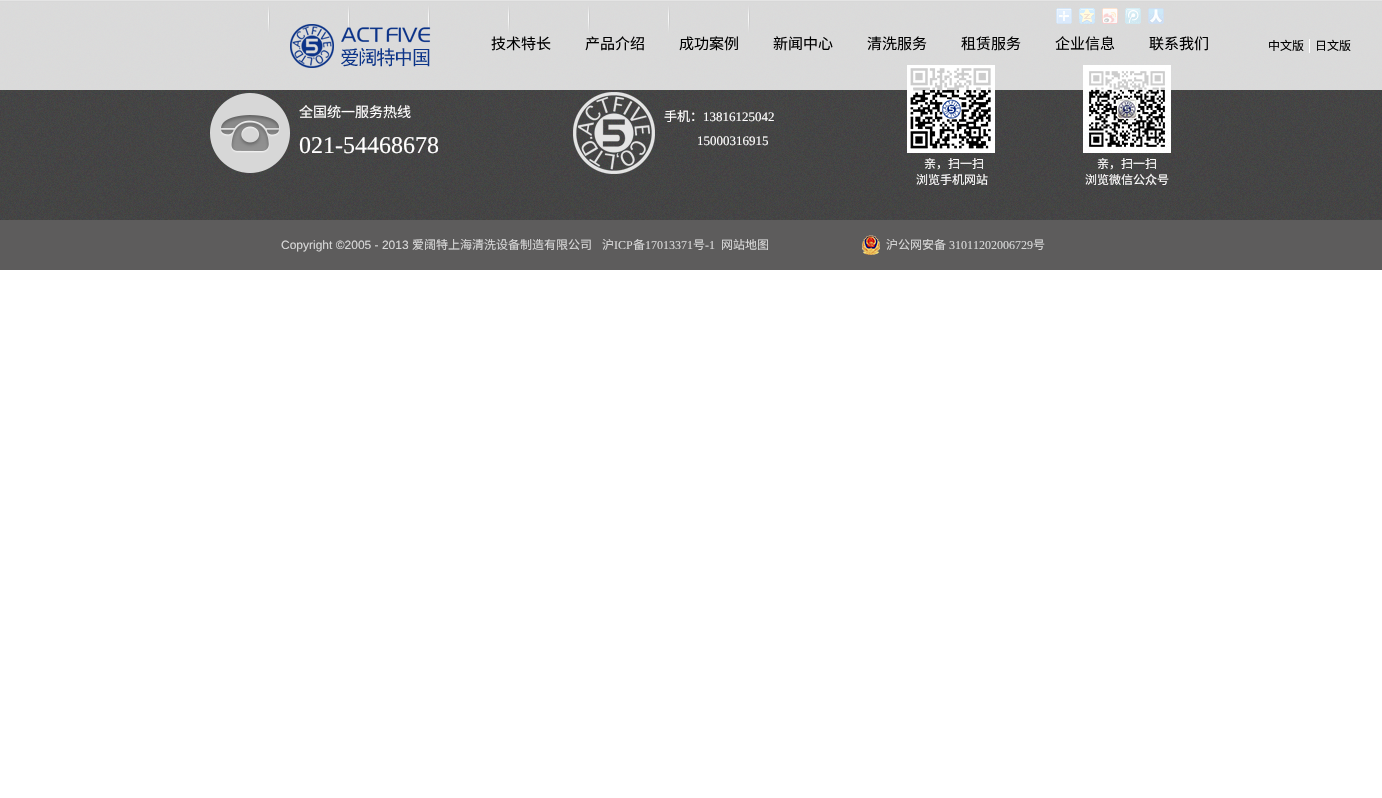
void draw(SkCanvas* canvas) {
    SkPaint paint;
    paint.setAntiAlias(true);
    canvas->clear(0xFFFFFFFF);
    canvas->drawImageRect(SkImages::DeferredFromEncodedData(SkData::MakeFromFileName("img2.png")), SkRect::MakeXYWH(0, 0, 1382, 270), SkSamplingOptions());
    canvas->drawImageRect(SkImages::DeferredFromEncodedData(SkData::MakeFromFileName("img3.png")), SkRect::MakeXYWH(268, 5, 2, 28), SkSamplingOptions());
    canvas->drawImageRect(SkImages::DeferredFromEncodedData(SkData::MakeFromFileName("img4.png")), SkRect::MakeXYWH(348, 5, 2, 28), SkSamplingOptions());
    canvas->drawImageRect(SkImages::DeferredFromEncodedData(SkData::MakeFromFileName("img5.png")), SkRect::MakeXYWH(428, 5, 2, 28), SkSamplingOptions());
    canvas->drawImageRect(SkImages::DeferredFromEncodedData(SkData::MakeFromFileName("img6.png")), SkRect::MakeXYWH(508, 5, 2, 28), SkSamplingOptions());
    canvas->drawImageRect(SkImages::DeferredFromEncodedData(SkData::MakeFromFileName("img7.png")), SkRect::MakeXYWH(588, 5, 2, 28), SkSamplingOptions());
    canvas->drawImageRect(SkImages::DeferredFromEncodedData(SkData::MakeFromFileName("img8.png")), SkRect::MakeXYWH(668, 5, 2, 28), SkSamplingOptions());
    canvas->drawImageRect(SkImages::DeferredFromEncodedData(SkData::MakeFromFileName("img9.png")), SkRect::MakeXYWH(748, 5, 2, 28), SkSamplingOptions());
    canvas->drawImageRect(SkImages::DeferredFromEncodedData(SkData::MakeFromFileName("img10.png")), SkRect::MakeXYWH(1056, 8, 16, 16), SkSamplingOptions());
    canvas->drawImageRect(SkImages::DeferredFromEncodedData(SkData::MakeFromFileName("img11.png")), SkRect::MakeXYWH(1079, 8, 16, 16), SkSamplingOptions());
    canvas->drawImageRect(SkImages::DeferredFromEncodedData(SkData::MakeFromFileName("img12.png")), SkRect::MakeXYWH(1102, 8, 16, 16), SkSamplingOptions());
    canvas->drawImageRect(SkImages::DeferredFromEncodedData(SkData::MakeFromFileName("img13.png")), SkRect::MakeXYWH(1125, 8, 16, 16), SkSamplingOptions());
    canvas->drawImageRect(SkImages::DeferredFromEncodedData(SkData::MakeFromFileName("img14.png")), SkRect::MakeXYWH(1148, 8, 16, 16), SkSamplingOptions());
    canvas->drawImageRect(SkImages::DeferredFromEncodedData(SkData::MakeFromFileName("img17.png")), SkRect::MakeXYWH(907, 65, 88, 88), SkSamplingOptions());
    canvas->drawImageRect(SkImages::DeferredFromEncodedData(SkData::MakeFromFileName("img18.png")), SkRect::MakeXYWH(1083, 65, 88, 88), SkSamplingOptions());
    paint.setColor(0xCCFFFFFF);
    canvas->drawRect(SkRect::MakeXYWH(0, 0, 1382, 90), paint);
    canvas->drawImageRect(SkImages::DeferredFromEncodedData(SkData::MakeFromFileName("img1.png")), SkRect::MakeXYWH(290, 24, 141, 44), SkSamplingOptions());
    SkFont font1(fontMgr->matchFamilyStyle("Noto Sans CJK SC", SkFontStyle::Normal()), 15);
    font1.setSubpixel(true);
    paint.setColor(0xFF000000);
    canvas->drawString("技术特长", 491, 49, font1, paint);
    canvas->drawString("产品介绍", 585, 49, font1, paint);
    canvas->drawString("成功案例", 679, 49, font1, paint);
    canvas->drawString("新闻中心", 773, 49, font1, paint);
    canvas->drawString("清洗服务", 867, 49, font1, paint);
    canvas->drawString("租赁服务", 961, 49, font1, paint);
    canvas->drawString("企业信息", 1055, 49, font1, paint);
    canvas->drawString("联系我们", 1149, 49, font1, paint);
    SkFont font2(fontMgr->matchFamilyStyle("Noto Sans CJK SC", SkFontStyle::Normal()), 12);
    font2.setSubpixel(true);
    canvas->drawString("中文版", 1268, 50, font2, paint);
    paint.setColor(0xFFFFFFFF);
    canvas->drawRect(SkRect::MakeXYWH(1309, 39, 1, 14), paint);
    paint.setColor(0xFF000000);
    canvas->drawString("日文版", 1315, 50, font2, paint);
    canvas->drawImageRect(SkImages::DeferredFromEncodedData(SkData::MakeFromFileName("img15.png")), SkRect::MakeXYWH(210, 93, 80, 80), SkSamplingOptions());
    SkFont font3(fontMgr->matchFamilyStyle("Noto Sans CJK SC", SkFontStyle::Normal()), 14);
    font3.setSubpixel(true);
    paint.setColor(0xFFFFFEFE);
    canvas->drawString("全国统一服务热线", 299, 117, font3, paint);
    SkFont font4(fontMgr->matchFamilyStyle("Liberation Serif", SkFontStyle::Normal()), 24);
    font4.setSubpixel(true);
    canvas->drawString("021-54468678", 299, 153, font4, paint);
    canvas->drawImageRect(SkImages::DeferredFromEncodedData(SkData::MakeFromFileName("img16.png")), SkRect::MakeXYWH(573, 92, 82, 82), SkSamplingOptions());
    SkFont font5(fontMgr->matchFamilyStyle("Noto Sans CJK SC", SkFontStyle::Normal()), 13);
    font5.setSubpixel(true);
    canvas->drawString("手机：", 664, 121, font5, paint);
    SkFont font6(fontMgr->matchFamilyStyle("Liberation Serif", SkFontStyle::Normal()), 13);
    font6.setSubpixel(true);
    canvas->drawString("13816125042", 703, 121, font6, paint);
    canvas->drawString("15000316915", 697, 145, font6, paint);
    canvas->drawString("亲，扫一扫", 924, 168, font2, paint);
    canvas->drawString("浏览手机网站", 916, 184, font2, paint);
    canvas->drawString("亲，扫一扫", 1097, 168, font2, paint);
    canvas->drawString("浏览微信公众号", 1085, 184, font2, paint);
    SkFont font7(fontMgr->matchFamilyStyle("Liberation Sans", SkFontStyle::Normal()), 12);
    font7.setSubpixel(true);
    paint.setColor(0xFFD7D7D7);
    canvas->drawString("Copyright ©2005 - 2013", 281, 249, font7, paint);
    canvas->drawString("爱阔特上海清洗设备制造有限公司", 412, 249, font2, paint);
    canvas->drawString("沪", 602, 249, font2, paint);
    SkFont font8(fontMgr->matchFamilyStyle("Liberation Serif", SkFontStyle::Normal()), 12);
    font8.setSubpixel(true);
    canvas->drawString("ICP", 614, 249, font8, paint);
    canvas->drawString("备", 633, 249, font2, paint);
    canvas->drawString("17013371", 645, 249, font8, paint);
    canvas->drawString("号", 693, 249, font2, paint);
    canvas->drawString("-1", 705, 249, font8, paint);
    canvas->drawString("网站地图", 721, 249, font2, paint);
    canvas->drawImageRect(SkImages::DeferredFromEncodedData(SkData::MakeFromFileName("img19.png")), SkRect::MakeXYWH(862, 235, 18, 20), SkSamplingOptions());
    canvas->drawString("沪公网安备", 886, 249, font2, paint);
    canvas->drawString("31011202006729", 949, 249, font8, paint);
    canvas->drawString("号", 1033, 249, font2, paint);
}
